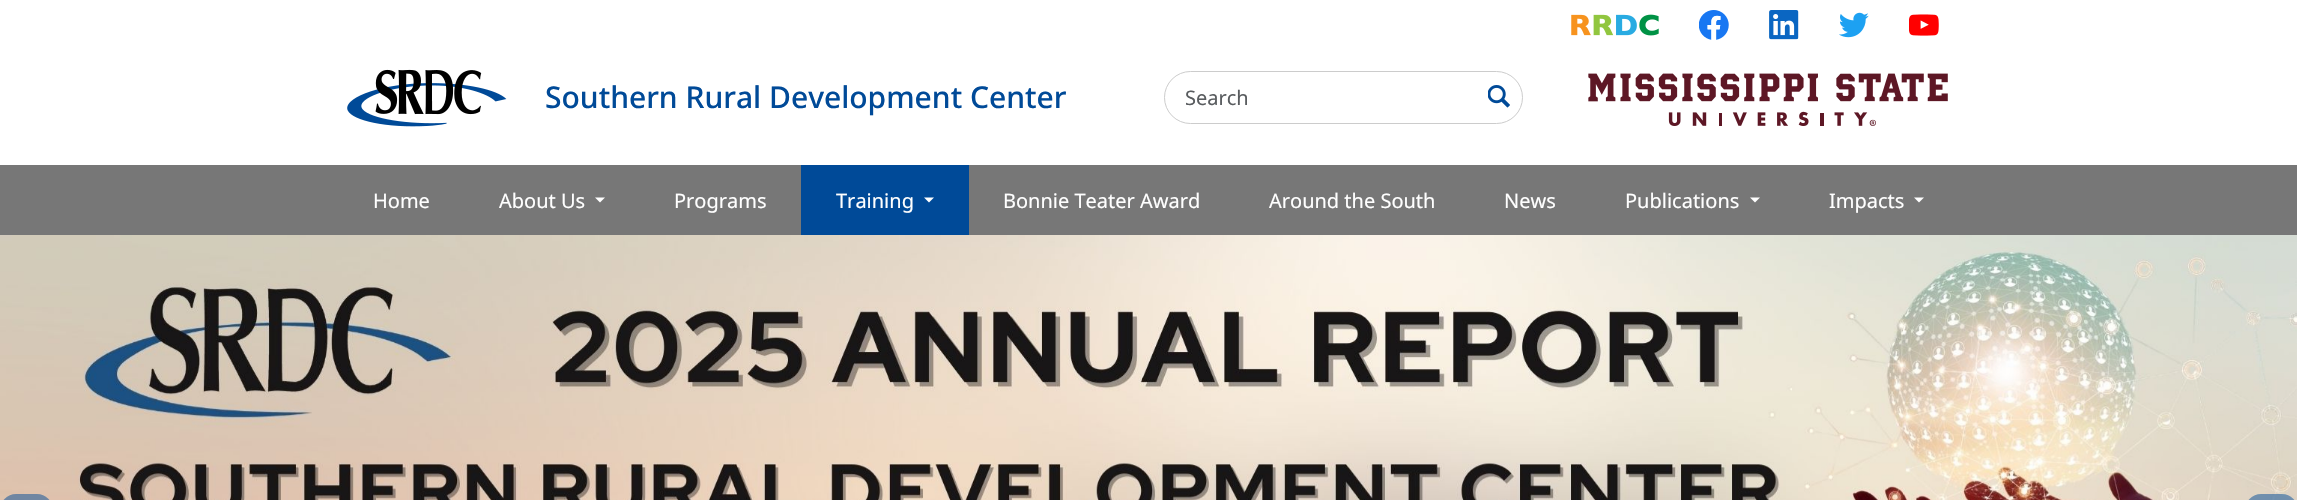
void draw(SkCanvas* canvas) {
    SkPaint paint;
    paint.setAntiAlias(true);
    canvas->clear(0xFFFFFFFF);
    canvas->drawImageRect(SkImages::DeferredFromEncodedData(SkData::MakeFromFileName("img1.png")), SkRect::MakeXYWH(1571, 14, 88, 22), SkSamplingOptions());
    canvas->drawImageRect(SkImages::DeferredFromEncodedData(SkData::MakeFromFileName("img2.png")), SkRect::MakeXYWH(1699, 10, 30, 30), SkSamplingOptions());
    canvas->drawImageRect(SkImages::DeferredFromEncodedData(SkData::MakeFromFileName("img3.png")), SkRect::MakeXYWH(1769, 10, 30, 30), SkSamplingOptions());
    canvas->drawImageRect(SkImages::DeferredFromEncodedData(SkData::MakeFromFileName("img4.png")), SkRect::MakeXYWH(1839, 12, 30, 26), SkSamplingOptions());
    canvas->drawImageRect(SkImages::DeferredFromEncodedData(SkData::MakeFromFileName("img5.png")), SkRect::MakeXYWH(1909, 14, 30, 22), SkSamplingOptions());
    canvas->drawImageRect(SkImages::DeferredFromEncodedData(SkData::MakeFromFileName("img6.png")), SkRect::MakeXYWH(347, 69, 160, 58), SkSamplingOptions());
    SkFont font1(fontMgr->matchFamilyStyle("Noto Sans", SkFontStyle(500, SkFontStyle::kNormal_Width, SkFontStyle::kUpright_Slant)), 30);
    font1.setSubpixel(true);
    paint.setColor(0xFF004A98);
    canvas->drawString("Southern Rural Development Center", 545, 108, font1, paint);
    paint.setStyle(SkPaint::kStroke_Style);
    paint.setStrokeWidth(1);
    paint.setColor(0xFFCCCCCC);
    canvas->drawRoundRect(SkRect::MakeXYWH(1164.5f, 71.5f, 358, 52), 26, 26, paint);
    SkFont font2(fontMgr->matchFamilyStyle("Noto Sans", SkFontStyle::Normal()), 20);
    font2.setSubpixel(true);
    paint.setStyle(SkPaint::kFill_Style);
    paint.setColor(0xFF595C5F);
    canvas->drawString("Search", 1185, 105, font2, paint);
    canvas->drawImageRect(SkImages::DeferredFromEncodedData(SkData::MakeFromFileName("img7.png")), SkRect::MakeXYWH(1488, 85, 22, 23), SkSamplingOptions());
    canvas->drawImageRect(SkImages::DeferredFromEncodedData(SkData::MakeFromFileName("img8.png")), SkRect::MakeXYWH(1588, 73, 360, 53), SkSamplingOptions());
    paint.setColor(0xFF777777);
    canvas->drawRect(SkRect::MakeXYWH(0, 165, 2297, 70), paint);
    paint.setColor(0xFFFFFFFF);
    canvas->drawString("Home", 373, 208, font2, paint);
    canvas->drawString("About Us", 499, 208, font2, paint);
    canvas->drawPath(SkPathBuilder().moveTo(595, 197.5f).lineTo(605, 197.5f).lineTo(600, 202.5f).close().detach(), paint);
    canvas->drawString("Programs", 674, 208, font2, paint);
    paint.setColor(0xFF004A98);
    canvas->drawRect(SkRect::MakeXYWH(801, 165, 168, 70), paint);
    paint.setColor(0xFFFFFFFF);
    canvas->drawString("Training", 836, 208, font2, paint);
    canvas->drawPath(SkPathBuilder().moveTo(924, 197.5f).lineTo(934, 197.5f).lineTo(929, 202.5f).close().detach(), paint);
    canvas->drawString("Bonnie Teater Award", 1003, 208, font2, paint);
    canvas->drawString("Around the South", 1269, 208, font2, paint);
    canvas->drawString("News", 1504, 208, font2, paint);
    canvas->drawString("Publications", 1625, 208, font2, paint);
    canvas->drawPath(SkPathBuilder().moveTo(1750, 197.5f).lineTo(1760, 197.5f).lineTo(1755, 202.5f).close().detach(), paint);
    canvas->drawString("Impacts", 1829, 208, font2, paint);
    canvas->drawPath(SkPathBuilder().moveTo(1914, 197.5f).lineTo(1924, 197.5f).lineTo(1919, 202.5f).close().detach(), paint);
    canvas->drawImageRect(SkImages::DeferredFromEncodedData(SkData::MakeFromFileName("img9.png")), SkRect::MakeXYWH(0, 235, 2297, 265), SkSamplingOptions());
    paint.setColor(0x80004A98);
    canvas->drawRoundRect(SkRect::MakeXYWH(0, 494, 53, 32), 26, 26, paint);
    canvas->drawRoundRect(SkRect::MakeXYWH(2245, 494, 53, 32), 26, 26, paint);
}
